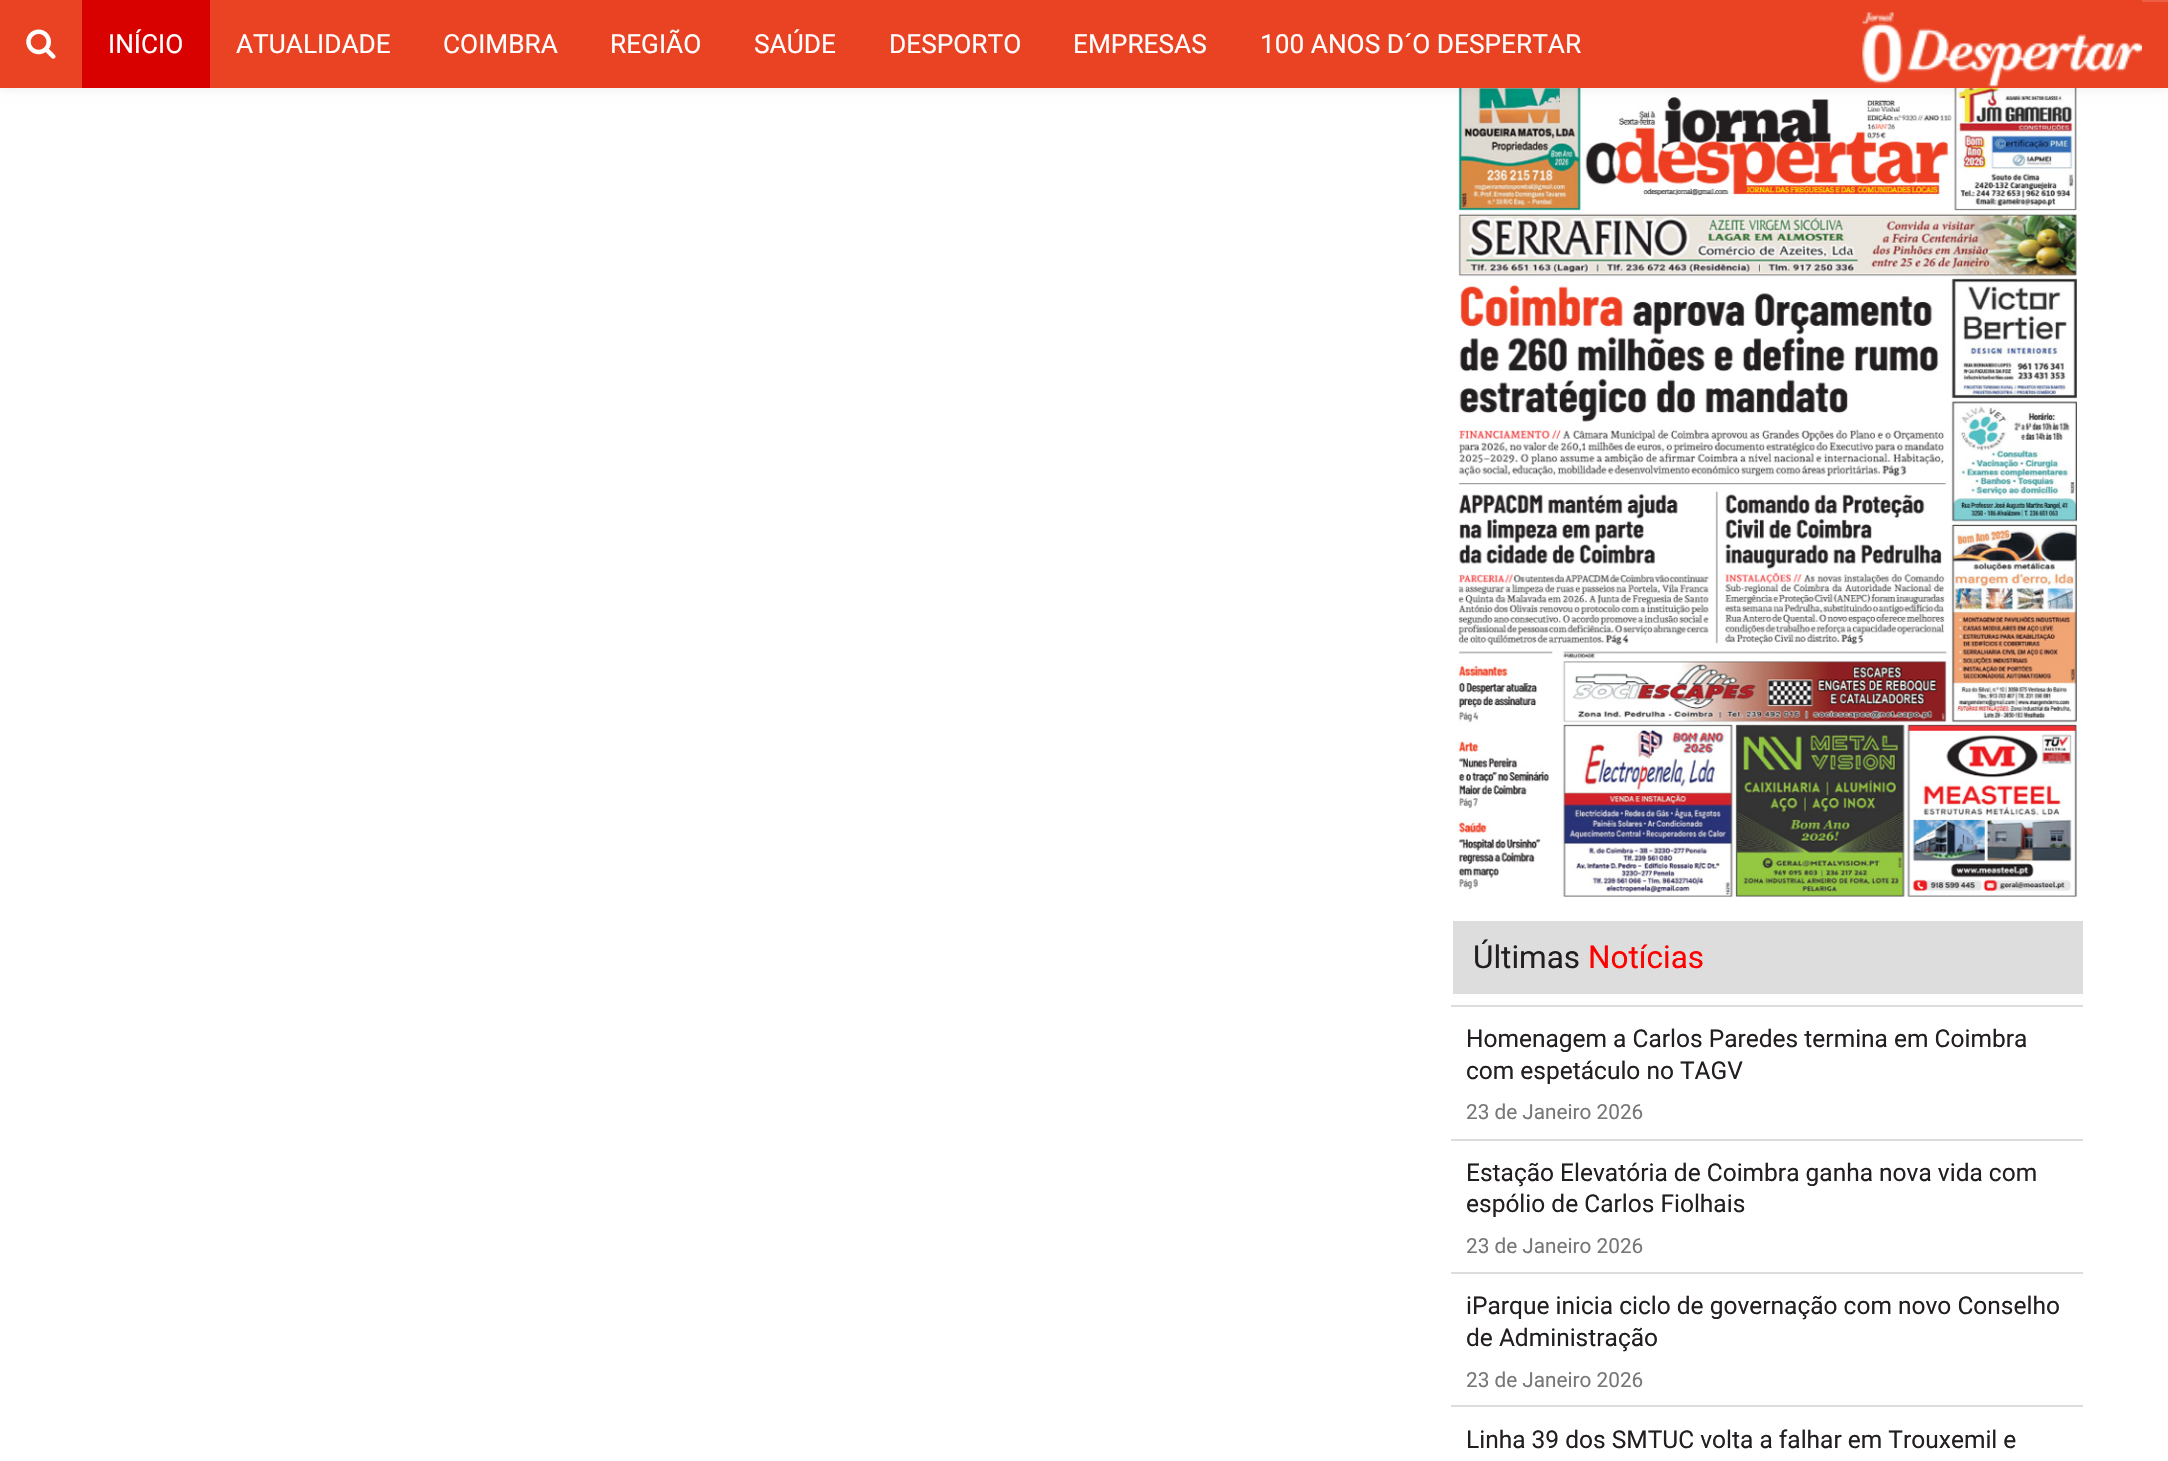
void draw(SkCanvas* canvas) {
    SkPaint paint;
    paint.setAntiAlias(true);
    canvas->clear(0xFFFFFFFF);
    canvas->drawImageRect(SkImages::DeferredFromEncodedData(SkData::MakeFromFileName("img3.png")), SkRect::MakeXYWH(1458, 88, 619, 809), SkSamplingOptions());
    paint.setColor(0x12000000);
    paint.setMaskFilter(SkMaskFilter::MakeBlur(kNormal_SkBlurStyle, 4.5f));
    canvas->drawRect(SkRect::MakeXYWH(0, 2, 2168, 87), paint);
    paint.setMaskFilter(nullptr);
    paint.setColor(0xFFEA4323);
    canvas->drawRect(SkRect::MakeXYWH(2142, 2, 26, 86), paint);
    paint.setColor(0xFFED5F44);
    canvas->drawRect(SkRect::MakeXYWH(2142, 0, 26, 2), paint);
    paint.setColor(0xFFEA4323);
    canvas->drawRect(SkRect::MakeXYWH(0, 0, 82, 88), paint);
    canvas->drawImageRect(SkImages::DeferredFromEncodedData(SkData::MakeFromFileName("img1.png")), SkRect::MakeXYWH(26, 29, 30, 30), SkSamplingOptions());
    canvas->drawRect(SkRect::MakeXYWH(210, 0, 1932, 88), paint);
    paint.setColor(0xFFD90000);
    canvas->drawRect(SkRect::MakeXYWH(82, 0, 128, 88), paint);
    SkFont font1(fontMgr->matchFamilyStyle("Roboto", SkFontStyle::Normal()), 26.25f);
    font1.setSubpixel(true);
    paint.setColor(0xFFFFFFFF);
    canvas->drawString("INÍCIO", 108, 53, font1, paint);
    canvas->drawString("ATUALIDADE", 236, 53, font1, paint);
    canvas->drawString("COIMBRA", 443, 53, font1, paint);
    canvas->drawString("REGIÃO", 610, 53, font1, paint);
    canvas->drawString("SAÚDE", 754, 53, font1, paint);
    canvas->drawString("DESPORTO", 889, 53, font1, paint);
    canvas->drawString("EMPRESAS", 1073, 53, font1, paint);
    canvas->drawString("100 ANOS D´O DESPERTAR", 1260, 53, font1, paint);
    canvas->drawImageRect(SkImages::DeferredFromEncodedData(SkData::MakeFromFileName("img2.png")), SkRect::MakeXYWH(1862, 12, 280, 76), SkSamplingOptions());
    paint.setColor(0xFFDDDDDD);
    canvas->drawRect(SkRect::MakeXYWH(1453, 921, 630, 73), paint);
    SkFont font2(fontMgr->matchFamilyStyle("Roboto", SkFontStyle::Normal()), 31.5f);
    font2.setSubpixel(true);
    paint.setColor(0xFF231F21);
    canvas->drawString("Últimas", 1473, 968, font2, paint);
    paint.setColor(0xFFFF0000);
    canvas->drawString("Notícias", 1588, 968, font2, paint);
    paint.setColor(0xFFDDDDDD);
    canvas->drawRect(SkRect::MakeXYWH(1451, 1005, 632, 2), paint);
    SkFont font3(fontMgr->matchFamilyStyle("Roboto", SkFontStyle::Normal()), 24.5f);
    font3.setSubpixel(true);
    paint.setColor(0xFF231F21);
    canvas->drawString("Homenagem a Carlos Paredes termina em Coimbra", 1466, 1047, font3, paint);
    canvas->drawString("com espetáculo no TAGV", 1466, 1079, font3, paint);
    SkFont font4(fontMgr->matchFamilyStyle("Roboto", SkFontStyle::Normal()), 20.75f);
    font4.setSubpixel(true);
    paint.setColor(0xFF777777);
    canvas->drawString("23 de Janeiro 2026", 1466, 1119, font4, paint);
    paint.setColor(0xFFDDDDDD);
    canvas->drawRect(SkRect::MakeXYWH(1451, 1139, 632, 2), paint);
    paint.setColor(0xFF231F21);
    canvas->drawString("Estação Elevatória de Coimbra ganha nova vida com", 1466, 1181, font3, paint);
    canvas->drawString("espólio de Carlos Fiolhais", 1466, 1212, font3, paint);
    paint.setColor(0xFF777777);
    canvas->drawString("23 de Janeiro 2026", 1466, 1253, font4, paint);
    paint.setColor(0xFFDDDDDD);
    canvas->drawRect(SkRect::MakeXYWH(1451, 1272, 632, 2), paint);
    paint.setColor(0xFF231F21);
    canvas->drawString("iParque inicia ciclo de governação com novo Conselho", 1466, 1314, font3, paint);
    canvas->drawString("de Administração", 1466, 1346, font3, paint);
    paint.setColor(0xFF777777);
    canvas->drawString("23 de Janeiro 2026", 1466, 1387, font4, paint);
    paint.setColor(0xFFDDDDDD);
    canvas->drawRect(SkRect::MakeXYWH(1451, 1405, 632, 2), paint);
    paint.setColor(0xFF231F21);
    canvas->drawString("Linha 39 dos SMTUC volta a falhar em Trouxemil e", 1466, 1448, font3, paint);
}
